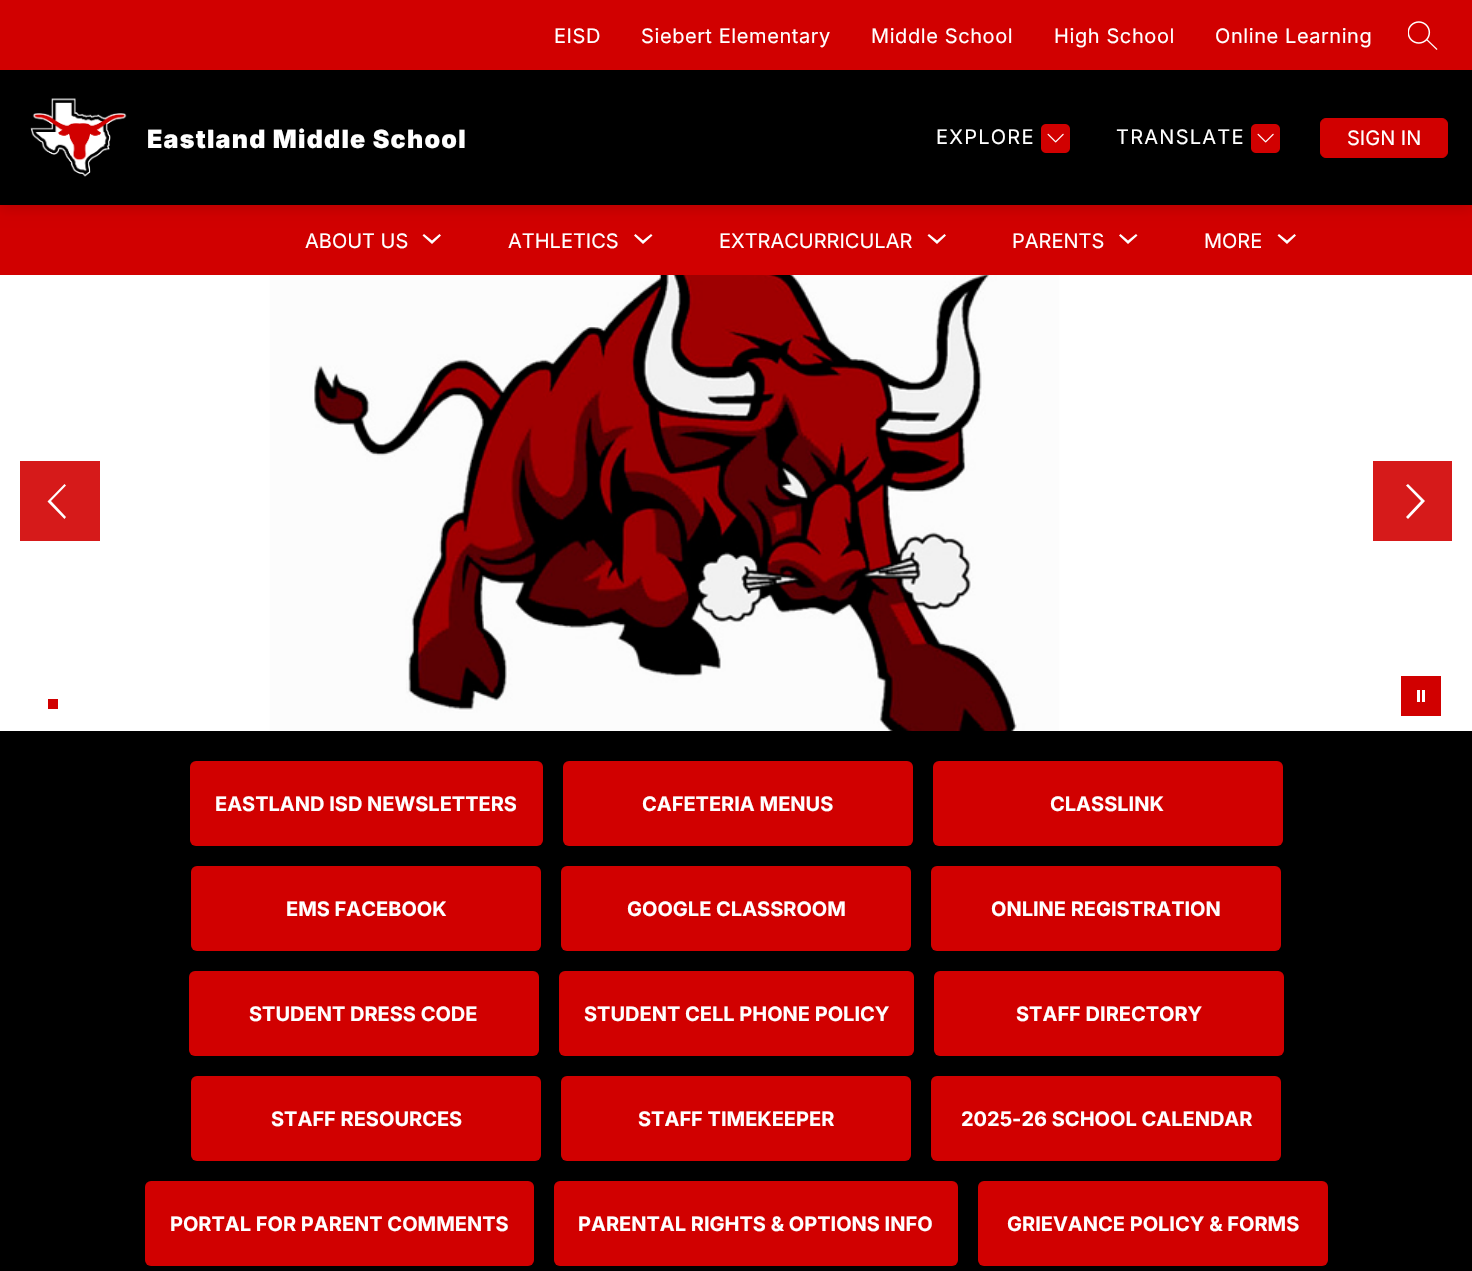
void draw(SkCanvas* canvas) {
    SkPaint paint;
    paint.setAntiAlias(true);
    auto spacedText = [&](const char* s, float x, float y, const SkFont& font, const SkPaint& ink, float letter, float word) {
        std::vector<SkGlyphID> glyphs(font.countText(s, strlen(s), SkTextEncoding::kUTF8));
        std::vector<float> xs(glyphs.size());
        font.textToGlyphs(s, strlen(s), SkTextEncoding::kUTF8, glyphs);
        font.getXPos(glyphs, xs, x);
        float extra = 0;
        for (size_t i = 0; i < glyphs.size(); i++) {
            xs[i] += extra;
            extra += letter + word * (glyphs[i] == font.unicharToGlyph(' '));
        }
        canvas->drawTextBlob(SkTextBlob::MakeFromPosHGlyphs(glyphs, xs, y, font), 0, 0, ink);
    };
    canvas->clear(0xFFFFFFFF);
    paint.setColor(0xFFD10000);
    canvas->drawRect(SkRect::MakeXYWH(0, 205, 1472, 70), paint);
    paint.setColor(0x1A000000);
    paint.setMaskFilter(SkMaskFilter::MakeBlur(kNormal_SkBlurStyle, 6));
    canvas->drawRect(SkRect::MakeXYWH(0, 5, 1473, 205), paint);
    paint.setMaskFilter(nullptr);
    paint.setColor(0xFF000000);
    canvas->drawRect(SkRect::MakeXYWH(0, 70, 1472, 135), paint);
    paint.setColor(0xFFD10000);
    canvas->drawRect(SkRect::MakeXYWH(0, 0, 1472, 70), paint);
    SkFont font1(fontMgr->matchFamilyStyle("Inter", SkFontStyle::Normal()), 20);
    font1.setSubpixel(true);
    paint.setColor(0xFFFFFFFF);
    spacedText("EISD", 554, 43, font1, paint, 0.6f, 0);
    spacedText("Siebert Elementary", 641, 43, font1, paint, 0.6f, 0);
    spacedText("Middle School", 871, 43, font1, paint, 0.6f, 0);
    spacedText("High School", 1054, 43, font1, paint, 0.6f, 0);
    spacedText("Online Learning", 1215, 43, font1, paint, 0.6f, 0);
    canvas->drawImageRect(SkImages::DeferredFromEncodedData(SkData::MakeFromFileName("img1.png")), SkRect::MakeXYWH(1408, 21, 30, 29), SkSamplingOptions());
    canvas->drawImageRect(SkImages::DeferredFromEncodedData(SkData::MakeFromFileName("img2.png")), SkRect::MakeXYWH(30, 98, 97, 79), SkSamplingOptions());
    SkFont font2(fontMgr->matchFamilyStyle("Inter", SkFontStyle(900, SkFontStyle::kNormal_Width, SkFontStyle::kUpright_Slant)), 25);
    font2.setSubpixel(true);
    spacedText("Eastland Middle School", 147, 148, font2, paint, 1.25f, 0);
    spacedText("EXPLORE", 936, 144, font1, paint, 1.25f, 0);
    canvas->drawImageRect(SkImages::DeferredFromEncodedData(SkData::MakeFromFileName("img3.png")), SkRect::MakeXYWH(1041, 124, 29, 29), SkSamplingOptions());
    spacedText("TRANSLATE", 1116, 144, font1, paint, 1.25f, 0);
    canvas->drawImageRect(SkImages::DeferredFromEncodedData(SkData::MakeFromFileName("img3.png")), SkRect::MakeXYWH(1251, 124, 29, 29), SkSamplingOptions());
    paint.setColor(0xFFD10000);
    canvas->drawRoundRect(SkRect::MakeXYWH(1320.5f, 118.5f, 127, 39), 5.5f, 5.5f, paint);
    paint.setStyle(SkPaint::kStroke_Style);
    paint.setStrokeWidth(1);
    canvas->drawRoundRect(SkRect::MakeXYWH(1320.5f, 118.5f, 127, 39), 5.5f, 5.5f, paint);
    paint.setStyle(SkPaint::kFill_Style);
    paint.setColor(0xFFFFFFFF);
    canvas->drawString("SIGN IN", 1347, 145, font1, paint);
    canvas->drawString("ABOUT US", 305, 248, font1, paint);
    canvas->drawPath(SkPathBuilder(SkPathFillType::kEvenOdd).moveTo(439.5f, 234).lineTo(432, 240.5f).lineTo(424, 234).lineTo(422.5f, 235.5f).lineTo(432, 244).lineTo(441, 235.5f).close().detach(), paint);
    canvas->drawString("ATHLETICS", 508, 248, font1, paint);
    canvas->drawPath(SkPathBuilder(SkPathFillType::kEvenOdd).moveTo(651, 234).lineTo(643, 240.5f).lineTo(635.5f, 234).lineTo(634, 235.5f).lineTo(643, 244).lineTo(652.5f, 235.5f).close().detach(), paint);
    canvas->drawString("EXTRACURRICULAR", 719, 248, font1, paint);
    canvas->drawPath(SkPathBuilder(SkPathFillType::kEvenOdd).moveTo(944.5f, 234).lineTo(937, 240.5f).lineTo(929, 234).lineTo(927.5f, 235.5f).lineTo(937, 244).lineTo(946, 235.5f).close().detach(), paint);
    canvas->drawString("PARENTS", 1012, 248, font1, paint);
    canvas->drawPath(SkPathBuilder(SkPathFillType::kEvenOdd).moveTo(1136, 234).lineTo(1128, 240.5f).lineTo(1120.5f, 234).lineTo(1119, 235.5f).lineTo(1128, 244).lineTo(1137.5f, 235.5f).close().detach(), paint);
    canvas->drawString("MORE", 1204, 248, font1, paint);
    canvas->drawPath(SkPathBuilder(SkPathFillType::kEvenOdd).moveTo(1294.5f, 234).lineTo(1287, 240.5f).lineTo(1279, 234).lineTo(1277.5f, 235.5f).lineTo(1287, 244).lineTo(1296, 235.5f).close().detach(), paint);
    canvas->drawImageRect(SkImages::DeferredFromEncodedData(SkData::MakeFromFileName("img4.png")), SkRect::MakeXYWH(0, 275, 1472, 456), SkSamplingOptions());
    paint.setColor(0xFFD61A1A);
    canvas->drawRect(SkRect::MakeXYWH(20, 461, 80, 80), paint);
    paint.setColor(0xFFFFFFFF);
    canvas->drawPath(SkPathBuilder(SkPathFillType::kEvenOdd).moveTo(51, 501).lineTo(66, 485.5f).lineTo(64.5f, 484).lineTo(47.5f, 501.5f).lineTo(64.5f, 519).lineTo(66, 517).close().detach(), paint);
    paint.setColor(0xFFD61A1A);
    canvas->drawRect(SkRect::MakeXYWH(1373, 461, 79, 80), paint);
    paint.setColor(0xFFFFFFFF);
    canvas->drawPath(SkPathBuilder(SkPathFillType::kEvenOdd).moveTo(1421, 501).lineTo(1406, 517).lineTo(1408, 519).lineTo(1425, 501).lineTo(1408, 484).lineTo(1406, 485.5f).close().detach(), paint);
    paint.setColor(0xFFD10000);
    canvas->drawRect(SkRect::MakeXYWH(48, 699, 10, 10), paint);
    canvas->drawRect(SkRect::MakeXYWH(1401, 676, 40, 40), paint);
    paint.setColor(0xFFFFFFFF);
    canvas->drawPath(SkPathBuilder(SkPathFillType::kEvenOdd).moveTo(1420, 690).lineTo(1417, 690).lineTo(1417, 702).lineTo(1420, 702).close().moveTo(1425, 690).lineTo(1422, 690).lineTo(1422, 702).lineTo(1425, 702).close().detach(), paint);
    paint.setColor(0xFF000000);
    canvas->drawRect(SkRect::MakeXYWH(0, 731, 1472, 540), paint);
    paint.setColor(0xFFD10000);
    canvas->drawRoundRect(SkRect::MakeXYWH(190, 761, 353, 85), 6, 6, paint);
    SkFont font3(fontMgr->matchFamilyStyle("Inter", SkFontStyle::Bold()), 20);
    font3.setSubpixel(true);
    paint.setColor(0xFFFFFFFF);
    canvas->drawString("EASTLAND ISD NEWSLETTERS", 215, 811, font3, paint);
    paint.setColor(0xFFD10000);
    canvas->drawRoundRect(SkRect::MakeXYWH(563, 761, 350, 85), 6, 6, paint);
    paint.setColor(0xFFFFFFFF);
    canvas->drawString("CAFETERIA MENUS", 642, 811, font3, paint);
    paint.setColor(0xFFD10000);
    canvas->drawRoundRect(SkRect::MakeXYWH(933, 761, 350, 85), 6, 6, paint);
    paint.setColor(0xFFFFFFFF);
    canvas->drawString("CLASSLINK", 1050, 811, font3, paint);
    paint.setColor(0xFFD10000);
    canvas->drawRoundRect(SkRect::MakeXYWH(191, 866, 350, 85), 6, 6, paint);
    paint.setColor(0xFFFFFFFF);
    canvas->drawString("EMS FACEBOOK", 286, 916, font3, paint);
    paint.setColor(0xFFD10000);
    canvas->drawRoundRect(SkRect::MakeXYWH(561, 866, 350, 85), 6, 6, paint);
    paint.setColor(0xFFFFFFFF);
    canvas->drawString("GOOGLE CLASSROOM", 627, 916, font3, paint);
    paint.setColor(0xFFD10000);
    canvas->drawRoundRect(SkRect::MakeXYWH(931, 866, 350, 85), 6, 6, paint);
    paint.setColor(0xFFFFFFFF);
    canvas->drawString("ONLINE REGISTRATION", 991, 916, font3, paint);
    paint.setColor(0xFFD10000);
    canvas->drawRoundRect(SkRect::MakeXYWH(189, 971, 350, 85), 6, 6, paint);
    paint.setColor(0xFFFFFFFF);
    canvas->drawString("STUDENT DRESS CODE", 249, 1021, font3, paint);
    paint.setColor(0xFFD10000);
    canvas->drawRoundRect(SkRect::MakeXYWH(559, 971, 355, 85), 6, 6, paint);
    paint.setColor(0xFFFFFFFF);
    canvas->drawString("STUDENT CELL PHONE POLICY", 584, 1021, font3, paint);
    paint.setColor(0xFFD10000);
    canvas->drawRoundRect(SkRect::MakeXYWH(934, 971, 350, 85), 6, 6, paint);
    paint.setColor(0xFFFFFFFF);
    canvas->drawString("STAFF DIRECTORY", 1016, 1021, font3, paint);
    paint.setColor(0xFFD10000);
    canvas->drawRoundRect(SkRect::MakeXYWH(191, 1076, 350, 85), 6, 6, paint);
    paint.setColor(0xFFFFFFFF);
    canvas->drawString("STAFF RESOURCES", 271, 1126, font3, paint);
    paint.setColor(0xFFD10000);
    canvas->drawRoundRect(SkRect::MakeXYWH(561, 1076, 350, 85), 6, 6, paint);
    paint.setColor(0xFFFFFFFF);
    canvas->drawString("STAFF TIMEKEEPER", 638, 1126, font3, paint);
    paint.setColor(0xFFD10000);
    canvas->drawRoundRect(SkRect::MakeXYWH(931, 1076, 350, 85), 6, 6, paint);
    paint.setColor(0xFFFFFFFF);
    canvas->drawString("2025-26 SCHOOL CALENDAR", 961, 1126, font3, paint);
    paint.setColor(0xFFD10000);
    canvas->drawRoundRect(SkRect::MakeXYWH(145, 1181, 389, 85), 6, 6, paint);
    paint.setColor(0xFFFFFFFF);
    canvas->drawString("PORTAL FOR PARENT COMMENTS", 170, 1231, font3, paint);
    paint.setColor(0xFFD10000);
    canvas->drawRoundRect(SkRect::MakeXYWH(554, 1181, 404, 85), 6, 6, paint);
    paint.setColor(0xFFFFFFFF);
    canvas->drawString("PARENTAL RIGHTS & OPTIONS INFO", 578, 1231, font3, paint);
    paint.setColor(0xFFD10000);
    canvas->drawRoundRect(SkRect::MakeXYWH(978, 1181, 350, 85), 6, 6, paint);
    paint.setColor(0xFFFFFFFF);
    canvas->drawString("GRIEVANCE POLICY & FORMS", 1007, 1231, font3, paint);
}
